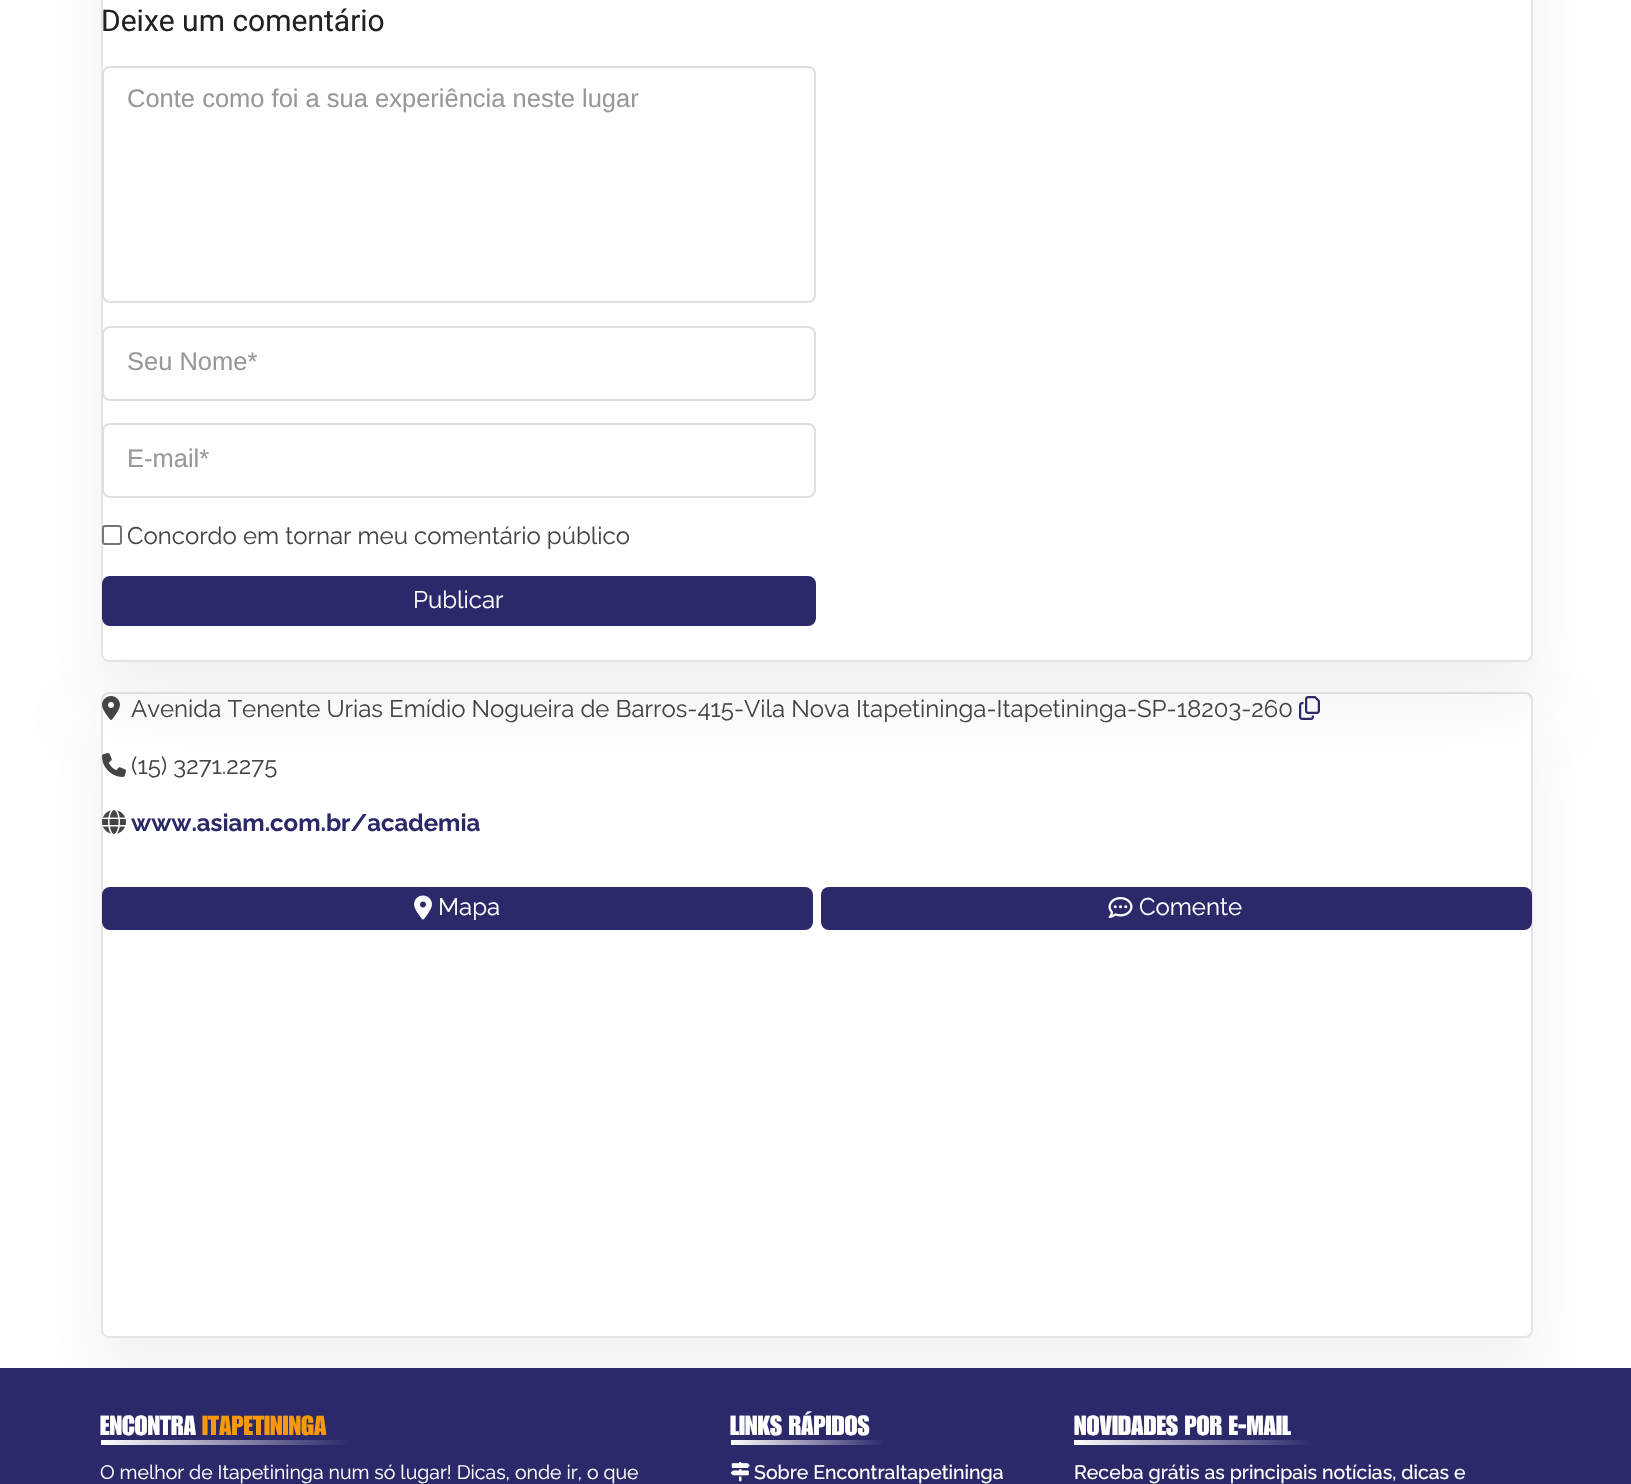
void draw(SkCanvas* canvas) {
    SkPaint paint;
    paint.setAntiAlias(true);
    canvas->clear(0xFFFFFFFF);
    canvas->save();
    canvas->clipPath(SkPathBuilder(SkPathFillType::kEvenOdd).moveTo(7, 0).lineTo(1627, 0).lineTo(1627, 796).lineTo(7, 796).close().moveTo(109, -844).lineTo(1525, -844).cubicTo(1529.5f, -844, 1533, -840.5f, 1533, -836).lineTo(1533, 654).cubicTo(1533, 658.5f, 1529.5f, 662, 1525, 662).lineTo(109, 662).cubicTo(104.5f, 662, 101, 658.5f, 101, 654).lineTo(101, -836).cubicTo(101, -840.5f, 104.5f, -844, 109, -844).close().detach(), true);
    paint.setColor(0x0D000000);
    paint.setMaskFilter(SkMaskFilter::MakeBlur(kNormal_SkBlurStyle, 31));
    canvas->drawRoundRect(SkRect::MakeXYWH(101, -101, 1432, 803), 8, 8, paint);
    paint.setMaskFilter(nullptr);
    canvas->restore();
    paint.setStyle(SkPaint::kStroke_Style);
    paint.setStrokeWidth(2);
    paint.setColor(0x1A000000);
    canvas->drawRoundRect(SkRect::MakeXYWH(102, -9, 1430, 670), 7, 7, paint);
    SkFont font1(fontMgr->matchFamilyStyle("Roboto", SkFontStyle::Normal()), 30);
    font1.setSubpixel(true);
    paint.setStyle(SkPaint::kFill_Style);
    paint.setColor(0xFF222222);
    canvas->drawString("Deixe um comentário", 101, 31, font1, paint);
    paint.setColor(0xFFFEFEFE);
    canvas->drawRoundRect(SkRect::MakeXYWH(103, 67, 712, 235), 7, 7, paint);
    paint.setStyle(SkPaint::kStroke_Style);
    paint.setColor(0xFFDDDFE2);
    canvas->drawRoundRect(SkRect::MakeXYWH(103, 67, 712, 235), 7, 7, paint);
    SkFont font2(fontMgr->matchFamilyStyle("Liberation Sans", SkFontStyle::Normal()), 25.5f);
    font2.setSubpixel(true);
    paint.setStyle(SkPaint::kFill_Style);
    paint.setColor(0xFF989898);
    canvas->drawString("Conte como foi a sua experiência neste lugar", 127, 107, font2, paint);
    paint.setColor(0xFFFEFEFE);
    canvas->drawRoundRect(SkRect::MakeXYWH(103, 327, 712, 73), 7, 7, paint);
    paint.setStyle(SkPaint::kStroke_Style);
    paint.setColor(0xFFDDDFE2);
    canvas->drawRoundRect(SkRect::MakeXYWH(103, 327, 712, 73), 7, 7, paint);
    paint.setStyle(SkPaint::kFill_Style);
    paint.setColor(0xFF989898);
    canvas->drawString("Seu Nome*", 127, 370, font2, paint);
    paint.setColor(0xFFFEFEFE);
    canvas->drawRoundRect(SkRect::MakeXYWH(103, 424, 712, 73), 7, 7, paint);
    paint.setStyle(SkPaint::kStroke_Style);
    paint.setColor(0xFFDDDFE2);
    canvas->drawRoundRect(SkRect::MakeXYWH(103, 424, 712, 73), 7, 7, paint);
    paint.setStyle(SkPaint::kFill_Style);
    paint.setColor(0xFF989898);
    canvas->drawString("E-mail*", 127, 467, font2, paint);
    paint.setColor(0xFFFFFFFF);
    canvas->drawRoundRect(SkRect::MakeXYWH(103, 526, 18, 18), 2, 2, paint);
    paint.setStyle(SkPaint::kStroke_Style);
    paint.setColor(0xFF767676);
    canvas->drawRoundRect(SkRect::MakeXYWH(103, 526, 18, 18), 2, 2, paint);
    SkFont font3(fontMgr->matchFamilyStyle("Raleway", SkFontStyle::Normal()), 24);
    font3.setSubpixel(true);
    paint.setStyle(SkPaint::kFill_Style);
    paint.setColor(0xFF444444);
    canvas->drawString("Concordo em tornar meu comentário público", 127, 544, font3, paint);
    paint.setColor(0xFF2B296A);
    canvas->drawRoundRect(SkRect::MakeXYWH(102, 576, 714, 50), 8, 8, paint);
    paint.setColor(0xFFFFFFFF);
    canvas->drawString("Publicar", 413, 608, font3, paint);
    canvas->save();
    canvas->clipPath(SkPathBuilder(SkPathFillType::kEvenOdd).moveTo(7, 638).lineTo(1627, 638).lineTo(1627, 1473).lineTo(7, 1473).close().moveTo(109, 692).lineTo(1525, 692).cubicTo(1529.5f, 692, 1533, 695.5f, 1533, 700).lineTo(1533, 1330).cubicTo(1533, 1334.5f, 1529.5f, 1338, 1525, 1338).lineTo(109, 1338).cubicTo(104.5f, 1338, 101, 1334.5f, 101, 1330).lineTo(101, 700).cubicTo(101, 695.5f, 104.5f, 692, 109, 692).close().detach(), true);
    paint.setColor(0x0D000000);
    paint.setMaskFilter(SkMaskFilter::MakeBlur(kNormal_SkBlurStyle, 31));
    canvas->drawRoundRect(SkRect::MakeXYWH(101, 732, 1432, 647), 8, 8, paint);
    paint.setMaskFilter(nullptr);
    canvas->restore();
    paint.setStyle(SkPaint::kStroke_Style);
    paint.setColor(0x1A000000);
    canvas->drawRoundRect(SkRect::MakeXYWH(102, 693, 1430, 644), 7, 7, paint);
    canvas->drawImageRect(SkImages::DeferredFromEncodedData(SkData::MakeFromFileName("img1.png")), SkRect::MakeXYWH(102, 696, 18, 24), SkSamplingOptions());
    paint.setStyle(SkPaint::kFill_Style);
    paint.setColor(0xFF444444);
    canvas->drawString("Avenida Tenente Urias Emídio Nogueira de Barros-415-Vila Nova Itapetininga-Itapetininga-SP-18203-260", 131, 717, font3, paint);
    canvas->drawImageRect(SkImages::DeferredFromEncodedData(SkData::MakeFromFileName("img2.png")), SkRect::MakeXYWH(1299, 696, 21, 24), SkSamplingOptions());
    canvas->drawImageRect(SkImages::DeferredFromEncodedData(SkData::MakeFromFileName("img3.png")), SkRect::MakeXYWH(102, 753, 24, 24), SkSamplingOptions());
    canvas->drawString("(15) 3271.2275", 131, 774, font3, paint);
    canvas->drawImageRect(SkImages::DeferredFromEncodedData(SkData::MakeFromFileName("img4.png")), SkRect::MakeXYWH(102, 810, 24, 24), SkSamplingOptions());
    SkFont font4(fontMgr->matchFamilyStyle("Raleway", SkFontStyle::Bold()), 24);
    font4.setSubpixel(true);
    paint.setColor(0xFF2B296A);
    canvas->drawString("www.asiam.com.br/academia", 131, 831, font4, paint);
    canvas->drawRoundRect(SkRect::MakeXYWH(102, 887, 711, 43), 8, 8, paint);
    canvas->drawImageRect(SkImages::DeferredFromEncodedData(SkData::MakeFromFileName("img5.png")), SkRect::MakeXYWH(414, 895, 18, 25), SkSamplingOptions());
    paint.setColor(0xFFFFFFFF);
    canvas->drawString("Mapa", 438, 915, font3, paint);
    paint.setColor(0xFF2B296A);
    canvas->drawRoundRect(SkRect::MakeXYWH(821, 887, 711, 43), 8, 8, paint);
    canvas->drawImageRect(SkImages::DeferredFromEncodedData(SkData::MakeFromFileName("img6.png")), SkRect::MakeXYWH(1108, 897, 25, 21), SkSamplingOptions());
    paint.setColor(0xFFFFFFFF);
    canvas->drawString("Comente", 1139, 915, font3, paint);
    paint.setColor(0xFF2B296A);
    canvas->drawRect(SkRect::MakeXYWH(0, 1368, 1631, 116), paint);
    SkFont font5(fontMgr->matchFamilyStyle("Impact", SkFontStyle(500, SkFontStyle::kNormal_Width, SkFontStyle::kUpright_Slant)), 27);
    font5.setSubpixel(true);
    paint.setColor(0xFFFFFFFF);
    canvas->drawString("ENCONTRA", 100, 1435, font5, paint);
    paint.setColor(0xFFF6990D);
    canvas->drawString("ITAPETININGA", 202, 1435, font5, paint);
    {
        const SkColor colors[] = {0xFFFFFFFF, 0xFF2B296A};
        const float stops[] = {0, 1};
        const SkPoint ends[] = {{101, 1442}, {350, 1442}};
        paint.setShader(SkGradientShader::MakeLinear(ends, colors, stops, 2, SkTileMode::kClamp));
        paint.setAlpha(255);
    }
    canvas->drawRect(SkRect::MakeXYWH(101, 1440, 249, 5), paint);
    SkFont font6(fontMgr->matchFamilyStyle("Raleway", SkFontStyle::Normal()), 19.5f);
    font6.setSubpixel(true);
    paint.setShader(nullptr);
    paint.setColor(0xFFFFFFFF);
    canvas->drawString("O melhor de Itapetininga num só lugar! Dicas, onde ir, o que", 100, 1479, font6, paint);
    canvas->drawString("LINKS RÁPIDOS", 730, 1435, font5, paint);
    {
        const SkColor colors[] = {0xFFFFFFFF, 0xFF2B296A};
        const float stops[] = {0, 1};
        const SkPoint ends[] = {{731, 1442}, {884, 1442}};
        paint.setShader(SkGradientShader::MakeLinear(ends, colors, stops, 2, SkTileMode::kClamp));
        paint.setAlpha(255);
    }
    canvas->drawRect(SkRect::MakeXYWH(731, 1440, 153, 5), paint);
    canvas->drawImageRect(SkImages::DeferredFromEncodedData(SkData::MakeFromFileName("img7.png")), SkRect::MakeXYWH(730, 1461, 20, 21), SkSamplingOptions());
    SkFont font7(fontMgr->matchFamilyStyle("Raleway", SkFontStyle(500, SkFontStyle::kNormal_Width, SkFontStyle::kUpright_Slant)), 19.5f);
    font7.setSubpixel(true);
    paint.setShader(nullptr);
    paint.setColor(0xFFFFFFFF);
    canvas->drawString("Sobre EncontraItapetininga", 754, 1479, font7, paint);
    canvas->drawString("NOVIDADES POR E-MAIL", 1074, 1435, font5, paint);
    {
        const SkColor colors[] = {0xFFFFFFFF, 0xFF2B296A};
        const float stops[] = {0, 1};
        const SkPoint ends[] = {{1074, 1442}, {1313, 1442}};
        paint.setShader(SkGradientShader::MakeLinear(ends, colors, stops, 2, SkTileMode::kClamp));
        paint.setAlpha(255);
    }
    canvas->drawRect(SkRect::MakeXYWH(1074, 1440, 239, 5), paint);
    paint.setShader(nullptr);
    paint.setColor(0xFFFFFFFF);
    canvas->drawString("Receba grátis as principais notícias, dicas e", 1074, 1479, font7, paint);
}
